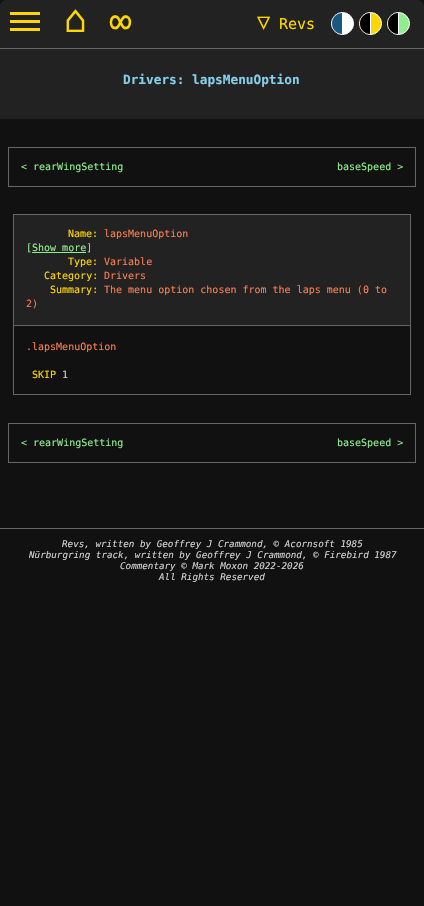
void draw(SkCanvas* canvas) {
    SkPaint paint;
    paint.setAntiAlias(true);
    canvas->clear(0xFF111111);
    paint.setColor(0xFF222222);
    canvas->drawPath(SkPathBuilder().moveTo(7, 0).lineTo(417, 0).cubicTo(421, 0, 424, 3, 424, 7).lineTo(424, 48).lineTo(0, 48).lineTo(0, 7).cubicTo(0, 3, 3, 0, 7, 0).close().detach(), paint);
    canvas->drawPath(SkPathBuilder().moveTo(7, 0).lineTo(50, 0).lineTo(50, 43).lineTo(0, 43).lineTo(0, 7).cubicTo(0, 3, 3, 0, 7, 0).close().detach(), paint);
    paint.setColor(0xFFFFD700);
    canvas->drawRect(SkRect::MakeXYWH(10, 12, 30, 3), paint);
    canvas->drawRect(SkRect::MakeXYWH(10, 20, 30, 3), paint);
    canvas->drawRect(SkRect::MakeXYWH(10, 28, 30, 3), paint);
    SkFont font1(fontMgr->matchFamilyStyle("DejaVu Sans Mono", SkFontStyle::Normal()), 38);
    font1.setSubpixel(true);
    canvas->drawString("⌂", 64, 32, font1, paint);
    canvas->drawString("∞", 109, 34, font1, paint);
    SkFont font2(fontMgr->matchFamilyStyle("DejaVu Sans Mono", SkFontStyle::Normal()), 22);
    font2.setSubpixel(true);
    canvas->drawString("▽", 257, 29, font2, paint);
    SkFont font3(fontMgr->matchFamilyStyle("DejaVu Sans Mono", SkFontStyle::Normal()), 15);
    font3.setSubpixel(true);
    canvas->drawString("Revs", 279, 29, font3, paint);
    paint.setColor(0xFFFFFFFF);
    canvas->drawCircle(342.5f, 23.5f, 11, paint);
    paint.setStyle(SkPaint::kStroke_Style);
    paint.setStrokeWidth(1);
    canvas->drawCircle(342.5f, 23.5f, 11, paint);
    paint.setStyle(SkPaint::kFill_Style);
    paint.setColor(0xFF185882);
    canvas->drawPath(SkPathBuilder().moveTo(342.5f, 13).lineTo(343, 13).lineTo(343, 34).lineTo(342.5f, 34).cubicTo(336.5f, 34, 332, 29.5f, 332, 23.5f).cubicTo(332, 17.5f, 336.5f, 13, 342.5f, 13).close().detach(), paint);
    paint.setColor(0xFFFFFFFF);
    canvas->drawRect(SkRect::MakeXYWH(342, 13, 1, 21), paint);
    paint.setColor(0xFFFFD700);
    canvas->drawCircle(370.5f, 23.5f, 11, paint);
    paint.setStyle(SkPaint::kStroke_Style);
    paint.setColor(0xFFFFFFFF);
    canvas->drawCircle(370.5f, 23.5f, 11, paint);
    paint.setStyle(SkPaint::kFill_Style);
    paint.setColor(0xFF000000);
    canvas->drawPath(SkPathBuilder().moveTo(370.5f, 13).lineTo(371, 13).lineTo(371, 34).lineTo(370.5f, 34).cubicTo(364.5f, 34, 360, 29.5f, 360, 23.5f).cubicTo(360, 17.5f, 364.5f, 13, 370.5f, 13).close().detach(), paint);
    paint.setColor(0xFFFFFFFF);
    canvas->drawRect(SkRect::MakeXYWH(370, 13, 1, 21), paint);
    paint.setColor(0xFF90EE90);
    canvas->drawCircle(398.5f, 23.5f, 11, paint);
    paint.setStyle(SkPaint::kStroke_Style);
    paint.setColor(0xFFFFFFFF);
    canvas->drawCircle(398.5f, 23.5f, 11, paint);
    paint.setStyle(SkPaint::kFill_Style);
    paint.setColor(0xFF000000);
    canvas->drawPath(SkPathBuilder().moveTo(398.5f, 13).lineTo(399, 13).lineTo(399, 34).lineTo(398.5f, 34).cubicTo(392.5f, 34, 388, 29.5f, 388, 23.5f).cubicTo(388, 17.5f, 392.5f, 13, 398.5f, 13).close().detach(), paint);
    paint.setColor(0xFFFFFFFF);
    canvas->drawRect(SkRect::MakeXYWH(398, 13, 1, 21), paint);
    paint.setColor(0xFF222222);
    canvas->drawRect(SkRect::MakeXYWH(0, 49, 424, 70), paint);
    paint.setColor(0xFF666666);
    canvas->drawRect(SkRect::MakeXYWH(0, 48, 424, 1), paint);
    SkFont font4(fontMgr->matchFamilyStyle("DejaVu Sans Mono", SkFontStyle::Bold()), 12.75f);
    font4.setSubpixel(true);
    paint.setColor(0xFF87CEEB);
    canvas->drawString("Drivers: lapsMenuOption", 123, 84, font4, paint);
    paint.setStyle(SkPaint::kStroke_Style);
    paint.setColor(0xFF666666);
    canvas->drawRect(SkRect::MakeXYWH(8.5f, 147.5f, 407, 39), paint);
    SkFont font5(fontMgr->matchFamilyStyle("DejaVu Sans Mono", SkFontStyle::Normal()), 10);
    font5.setSubpixel(true);
    paint.setStyle(SkPaint::kFill_Style);
    paint.setColor(0xFF90EE90);
    canvas->drawString("< rearWingSetting", 21, 170, font5, paint);
    canvas->drawString("baseSpeed >", 337, 170, font5, paint);
    paint.setColor(0xFF666666);
    canvas->drawRect(SkRect::MakeXYWH(410, 214, 1, 181), paint);
    canvas->drawRect(SkRect::MakeXYWH(13, 394, 398, 1), paint);
    canvas->drawRect(SkRect::MakeXYWH(13, 214, 1, 181), paint);
    paint.setColor(0xFF222222);
    canvas->drawRect(SkRect::MakeXYWH(14, 215, 396, 110), paint);
    paint.setColor(0xFF666666);
    canvas->drawRect(SkRect::MakeXYWH(14, 214, 396, 1), paint);
    canvas->drawRect(SkRect::MakeXYWH(14, 325, 396, 1), paint);
    paint.setColor(0xFFFFD700);
    canvas->drawString("Name:", 68, 237, font5, paint);
    paint.setColor(0xFFFF7F50);
    canvas->drawString("lapsMenuOption", 104, 237, font5, paint);
    paint.setColor(0xFF90EE90);
    canvas->drawString("[Show more]", 26, 251, font5, paint);
    canvas->drawRect(SkRect::MakeXYWH(32, 252, 54, 1), paint);
    paint.setColor(0xFFFFD700);
    canvas->drawString("Type:", 68, 265, font5, paint);
    paint.setColor(0xFFFF7F50);
    canvas->drawString("Variable", 104, 265, font5, paint);
    paint.setColor(0xFFFFD700);
    canvas->drawString("Category:", 44, 279, font5, paint);
    paint.setColor(0xFFFF7F50);
    canvas->drawString("Drivers", 104, 279, font5, paint);
    paint.setColor(0xFFFFD700);
    canvas->drawString("Summary:", 50, 293, font5, paint);
    paint.setColor(0xFFFF7F50);
    canvas->drawString("The menu option chosen from the laps menu (0 to", 104, 293, font5, paint);
    canvas->drawString("2)", 26, 307, font5, paint);
    canvas->drawString(".lapsMenuOption", 26, 350, font5, paint);
    paint.setColor(0xFFFFD700);
    canvas->drawString("SKIP", 32, 378, font5, paint);
    paint.setColor(0xFFD3D3D3);
    canvas->drawString("1", 62, 378, font5, paint);
    paint.setStyle(SkPaint::kStroke_Style);
    paint.setColor(0xFF666666);
    canvas->drawRect(SkRect::MakeXYWH(8.5f, 423.5f, 407, 39), paint);
    paint.setStyle(SkPaint::kFill_Style);
    paint.setColor(0xFF90EE90);
    canvas->drawString("< rearWingSetting", 21, 446, font5, paint);
    canvas->drawString("baseSpeed >", 337, 446, font5, paint);
    paint.setColor(0xFF666666);
    canvas->drawRect(SkRect::MakeXYWH(0, 528, 424, 1), paint);
    SkFont font6(fontMgr->matchFamilyStyle("DejaVu Sans Mono", SkFontStyle::Italic()), 9.25f);
    font6.setSubpixel(true);
    paint.setColor(0xFFD3D3D3);
    canvas->drawString("Revs, written by Geoffrey J Crammond, © Acornsoft 1985", 62, 547, font6, paint);
    canvas->drawString("Nürburgring track, written by Geoffrey J Crammond, © Firebird 1987", 29, 558, font6, paint);
    canvas->drawString("Commentary © Mark Moxon 2022-2026", 120, 569, font6, paint);
    canvas->drawString("All Rights Reserved", 159, 580, font6, paint);
}
